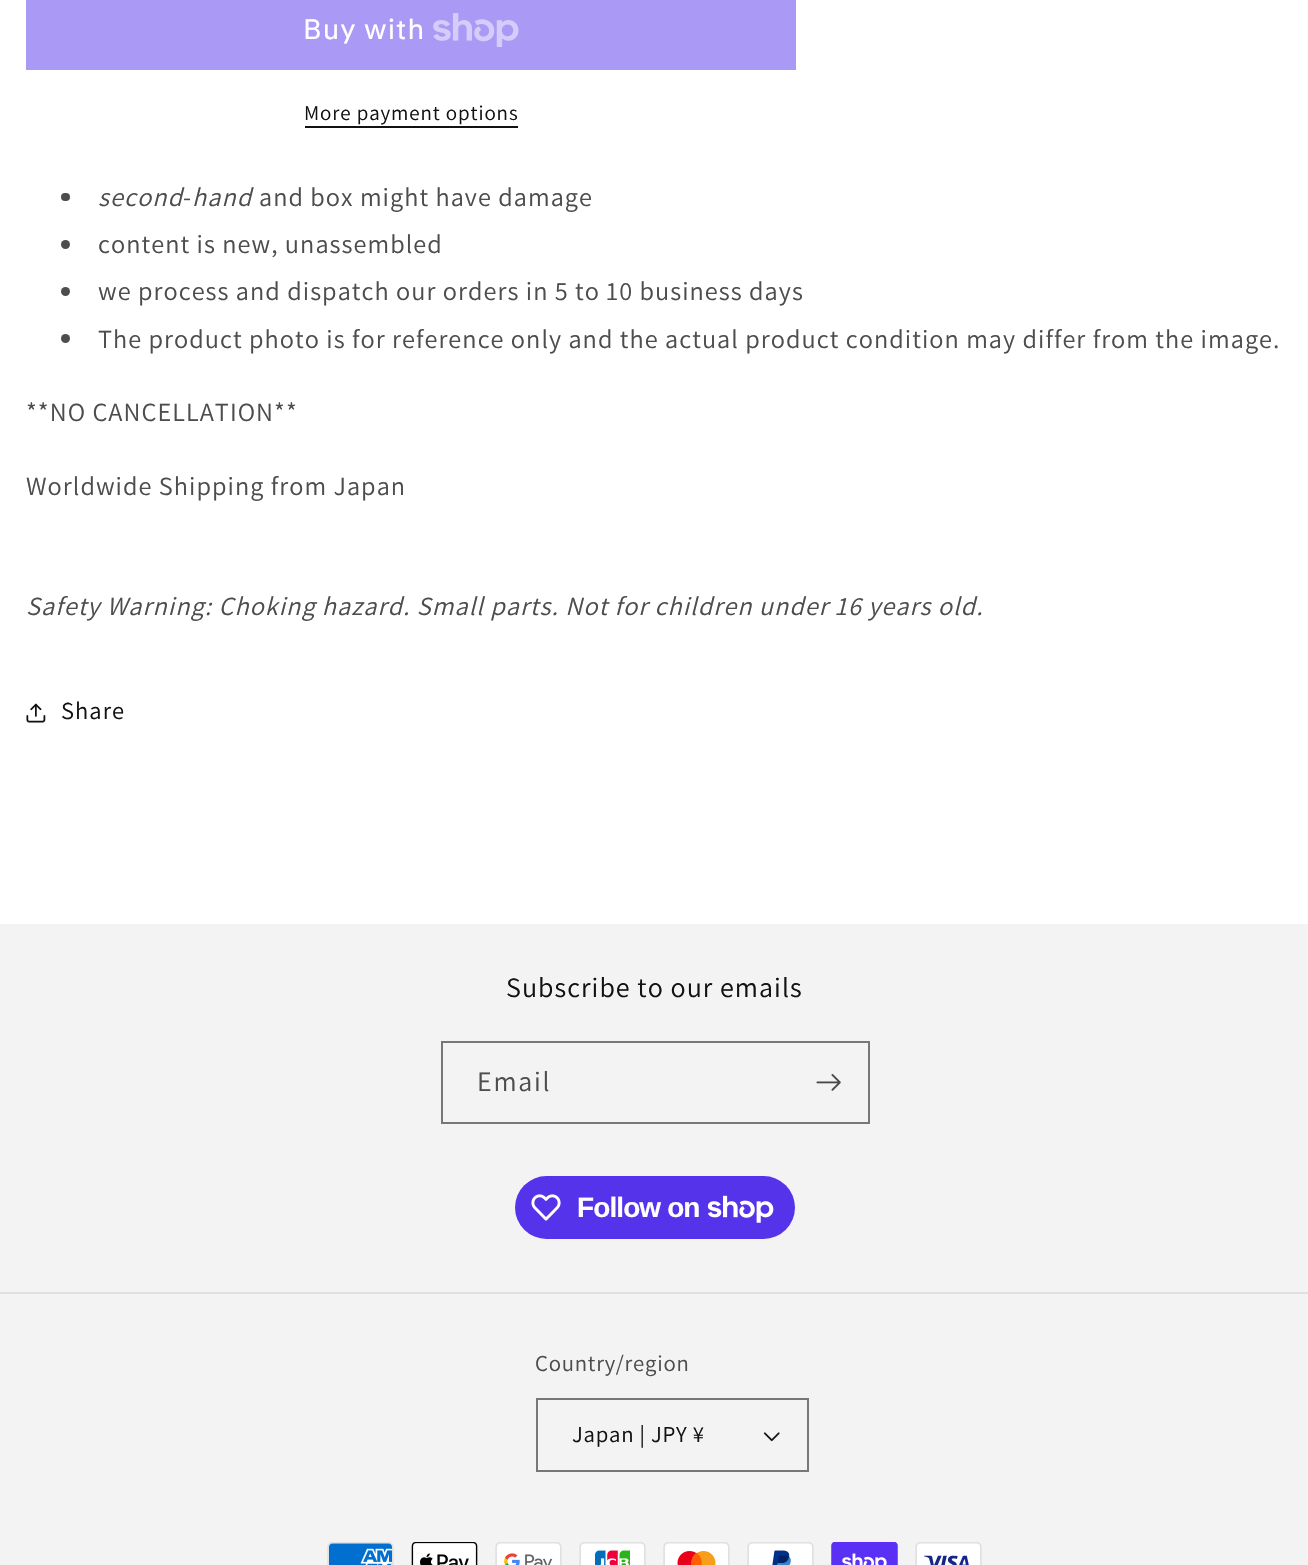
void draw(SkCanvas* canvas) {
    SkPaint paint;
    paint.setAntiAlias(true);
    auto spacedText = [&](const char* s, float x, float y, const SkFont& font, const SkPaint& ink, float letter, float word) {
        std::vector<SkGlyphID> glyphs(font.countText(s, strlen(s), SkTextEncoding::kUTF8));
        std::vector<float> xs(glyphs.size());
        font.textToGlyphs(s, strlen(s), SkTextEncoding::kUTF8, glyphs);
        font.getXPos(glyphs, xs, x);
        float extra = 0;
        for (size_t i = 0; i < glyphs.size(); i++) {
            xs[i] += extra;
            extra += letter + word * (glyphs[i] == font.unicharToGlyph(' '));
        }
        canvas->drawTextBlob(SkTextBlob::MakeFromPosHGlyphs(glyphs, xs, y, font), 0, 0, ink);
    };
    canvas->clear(0xFFFFFFFF);
    paint.setColor(0xFFAA99F5);
    canvas->drawRect(SkRect::MakeXYWH(26, 0, 770, 70), paint);
    SkFont font1(fontMgr->matchFamilyStyle("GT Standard", SkFontStyle::Normal()), 28);
    font1.setSubpixel(true);
    paint.setColor(0xFFFFFFFF);
    spacedText("Buy with", 303, 39, font1, paint, 1.05f, 0);
    canvas->drawImageRect(SkImages::DeferredFromEncodedData(SkData::MakeFromFileName("img1.png")), SkRect::MakeXYWH(433, 13, 86, 34), SkSamplingOptions());
    SkFont font2(fontMgr->matchFamilyStyle("Assistant", SkFontStyle::Normal()), 21);
    font2.setSubpixel(true);
    paint.setColor(0xFF121212);
    spacedText("More payment options", 304, 120, font2, paint, 0.9f, 0);
    canvas->drawRect(SkRect::MakeXYWH(305, 126, 213, 2), paint);
    paint.setColor(0xFF4D4D4D);
    canvas->drawRoundRect(SkRect::MakeXYWH(61, 193, 9, 8), 4, 4, paint);
    SkFont font3(fontMgr->matchFamilyStyle("Assistant", SkFontStyle::Italic()), 26.25f);
    font3.setSubpixel(true);
    spacedText("second", 98, 206, font3, paint, 1.05f, 0);
    SkFont font4(fontMgr->matchFamilyStyle("Assistant", SkFontStyle::Normal()), 26.25f);
    font4.setSubpixel(true);
    spacedText("-", 183, 206, font4, paint, 1.05f, 0);
    spacedText("hand", 192, 206, font3, paint, 1.05f, 0);
    spacedText("and box might have damage", 259, 206, font4, paint, 1.05f, 0);
    canvas->drawCircle(65.5f, 244.5f, 4.5f, paint);
    spacedText("content is new, unassembled", 98, 253, font4, paint, 1.05f, 0);
    canvas->drawCircle(65.5f, 291.5f, 4.5f, paint);
    spacedText("we process and dispatch our orders in 5 to 10 business days", 98, 300, font4, paint, 1.05f, 0);
    canvas->drawCircle(65.5f, 338.5f, 4.5f, paint);
    spacedText("The product photo is for reference only and the actual product condition may differ from the image.", 98, 348, font4, paint, 1.05f, 0);
    spacedText("**NO CANCELLATION**", 26, 421, font4, paint, 1.05f, 0);
    spacedText("Worldwide Shipping from Japan", 26, 495, font4, paint, 1.05f, 0);
    spacedText("Safety Warning: Choking hazard. Small parts. Not for children under 16 years old.", 26, 615, font3, paint, 1.05f, 0);
    canvas->drawImageRect(SkImages::DeferredFromEncodedData(SkData::MakeFromFileName("img2.png")), SkRect::MakeXYWH(26, 703, 20, 20), SkSamplingOptions());
    SkFont font5(fontMgr->matchFamilyStyle("Assistant", SkFontStyle::Normal()), 24.5f);
    font5.setSubpixel(true);
    paint.setColor(0xFF121212);
    spacedText("Share", 61, 719, font5, paint, 1.05f, 0);
    paint.setColor(0xFFF3F3F3);
    canvas->drawRect(SkRect::MakeXYWH(0, 924, 1308, 641), paint);
    SkFont font6(fontMgr->matchFamilyStyle("Assistant", SkFontStyle::Normal()), 28);
    font6.setSubpixel(true);
    paint.setColor(0xFF121212);
    spacedText("Subscribe to our emails", 506, 997, font6, paint, 1.05f, 0);
    paint.setStyle(SkPaint::kStroke_Style);
    paint.setStrokeWidth(2);
    paint.setColor(0xFF777777);
    canvas->drawRect(SkRect::MakeXYWH(442, 1042, 427, 81), paint);
    paint.setStyle(SkPaint::kFill_Style);
    paint.setColor(0xFF4D4D4D);
    spacedText("Email", 477, 1091, font6, paint, 1.75f, 0);
    canvas->drawImageRect(SkImages::DeferredFromEncodedData(SkData::MakeFromFileName("img3.png")), SkRect::MakeXYWH(816, 1074, 25, 17), SkSamplingOptions());
    paint.setColor(0xFF5433EB);
    canvas->drawRoundRect(SkRect::MakeXYWH(515, 1176, 280, 63), 31.5f, 31.5f, paint);
    canvas->drawImageRect(SkImages::DeferredFromEncodedData(SkData::MakeFromFileName("img4.png")), SkRect::MakeXYWH(531, 1194, 30, 27), SkSamplingOptions());
    SkFont font7(fontMgr->matchFamilyStyle("Liberation Sans", SkFontStyle::Bold()), 28);
    font7.setSubpixel(true);
    paint.setColor(0xFFFFFFFF);
    spacedText("Follow on", 577, 1217, font7, paint, -0.9f, 0);
    canvas->drawImageRect(SkImages::DeferredFromEncodedData(SkData::MakeFromFileName("img5.png")), SkRect::MakeXYWH(707, 1195, 67, 28), SkSamplingOptions());
    paint.setColor(0xFFE1E1E1);
    canvas->drawRect(SkRect::MakeXYWH(0, 1292, 1308, 2), paint);
    SkFont font8(fontMgr->matchFamilyStyle("Assistant", SkFontStyle::Normal()), 22.75f);
    font8.setSubpixel(true);
    paint.setColor(0xFF4D4D4D);
    spacedText("Country/region", 535, 1371, font8, paint, 0.75f, 0);
    canvas->drawImageRect(SkImages::DeferredFromEncodedData(SkData::MakeFromFileName("img6.png")), SkRect::MakeXYWH(763, 1432, 17, 10), SkSamplingOptions());
    paint.setStyle(SkPaint::kStroke_Style);
    paint.setColor(0xFF777777);
    canvas->drawRect(SkRect::MakeXYWH(537, 1399, 271, 72), paint);
    paint.setStyle(SkPaint::kFill_Style);
    paint.setColor(0xFF121212);
    spacedText("Japan | JPY ¥", 572, 1442, font8, paint, 0.75f, 0);
    canvas->drawImageRect(SkImages::DeferredFromEncodedData(SkData::MakeFromFileName("img7.png")), SkRect::MakeXYWH(327, 1542, 67, 23), SkSamplingOptions());
    canvas->drawImageRect(SkImages::DeferredFromEncodedData(SkData::MakeFromFileName("img8.png")), SkRect::MakeXYWH(411, 1542, 67, 23), SkSamplingOptions());
    canvas->drawImageRect(SkImages::DeferredFromEncodedData(SkData::MakeFromFileName("img9.png")), SkRect::MakeXYWH(495, 1542, 67, 23), SkSamplingOptions());
    canvas->drawImageRect(SkImages::DeferredFromEncodedData(SkData::MakeFromFileName("img10.png")), SkRect::MakeXYWH(579, 1542, 67, 23), SkSamplingOptions());
    canvas->drawImageRect(SkImages::DeferredFromEncodedData(SkData::MakeFromFileName("img11.png")), SkRect::MakeXYWH(663, 1542, 67, 23), SkSamplingOptions());
    canvas->drawImageRect(SkImages::DeferredFromEncodedData(SkData::MakeFromFileName("img12.png")), SkRect::MakeXYWH(747, 1542, 67, 23), SkSamplingOptions());
    canvas->drawImageRect(SkImages::DeferredFromEncodedData(SkData::MakeFromFileName("img13.png")), SkRect::MakeXYWH(831, 1542, 67, 23), SkSamplingOptions());
    canvas->drawImageRect(SkImages::DeferredFromEncodedData(SkData::MakeFromFileName("img14.png")), SkRect::MakeXYWH(915, 1542, 67, 23), SkSamplingOptions());
}
